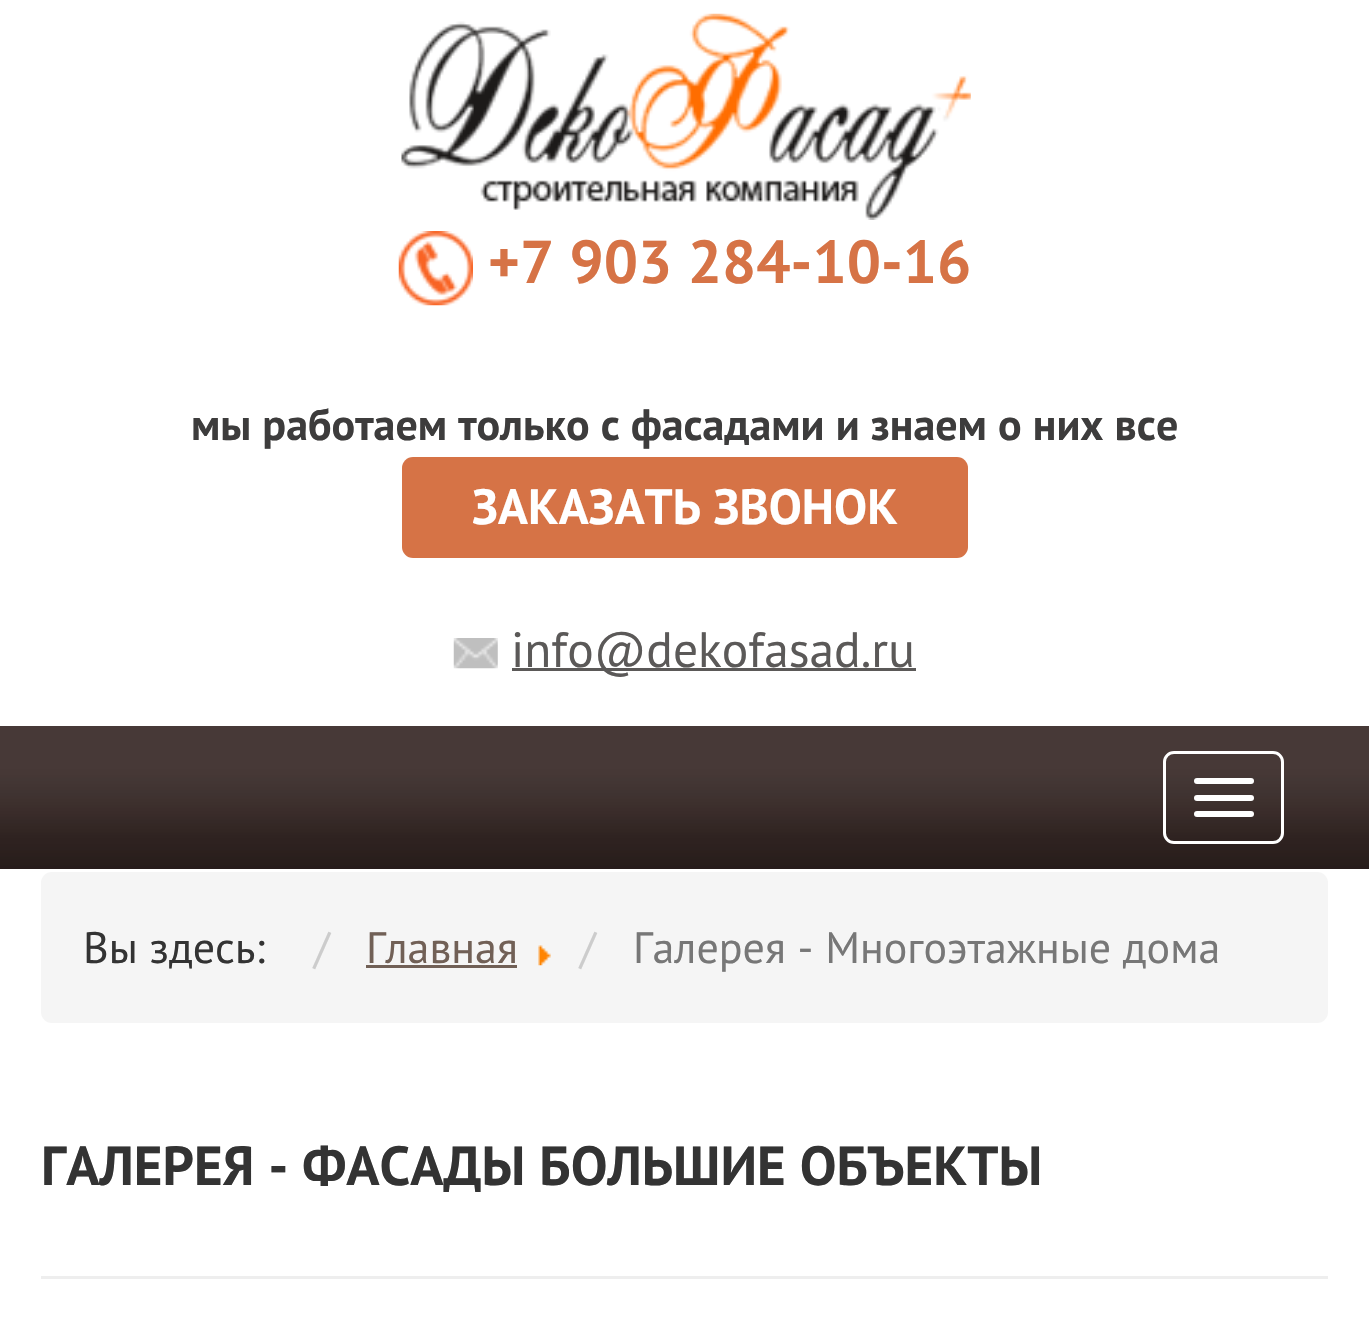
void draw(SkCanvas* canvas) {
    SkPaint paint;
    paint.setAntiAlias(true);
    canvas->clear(0xFFFFFFFF);
    canvas->drawImageRect(SkImages::DeferredFromEncodedData(SkData::MakeFromFileName("img1.png")), SkRect::MakeXYWH(401, 13, 570, 207), SkSamplingOptions());
    canvas->drawImageRect(SkImages::DeferredFromEncodedData(SkData::MakeFromFileName("img2.png")), SkRect::MakeXYWH(398, 231, 75, 75), SkSamplingOptions());
    SkFont font1(fontMgr->matchFamilyStyle("PT Sans", SkFontStyle::Bold()), 60.5f);
    font1.setSubpixel(true);
    paint.setColor(0xFFD67346);
    canvas->drawString("+7 903 284-10-16", 488, 283, font1, paint);
    SkFont font2(fontMgr->matchFamilyStyle("PT Sans", SkFontStyle::Bold()), 44);
    font2.setSubpixel(true);
    paint.setColor(0xFF3D3C3C);
    canvas->drawString("мы работаем только с фасадами и знаем о них все", 191, 440, font2, paint);
    paint.setColor(0xFFD67346);
    canvas->drawRoundRect(SkRect::MakeXYWH(402, 457, 566, 101), 11, 11, paint);
    SkFont font3(fontMgr->matchFamilyStyle("PT Sans", SkFontStyle::Bold()), 49.5f);
    font3.setSubpixel(true);
    paint.setColor(0xFFFFFFFF);
    canvas->drawString("ЗАКАЗАТЬ ЗВОНОК", 472, 524, font3, paint);
    canvas->drawImageRect(SkImages::DeferredFromEncodedData(SkData::MakeFromFileName("img3.png")), SkRect::MakeXYWH(453, 638, 45, 31), SkSamplingOptions());
    paint.setColor(0xFF5B5958);
    canvas->drawRect(SkRect::MakeXYWH(512, 668, 404, 3), paint);
    SkFont font4(fontMgr->matchFamilyStyle("PT Sans", SkFontStyle::Normal()), 49.5f);
    font4.setSubpixel(true);
    canvas->drawString("info@dekofasad.ru", 511, 667, font4, paint);
    canvas->drawImageRect(SkImages::DeferredFromEncodedData(SkData::MakeFromFileName("img4.png")), SkRect::MakeXYWH(0, 726, 1369, 143), SkSamplingOptions());
    paint.setStyle(SkPaint::kStroke_Style);
    paint.setStrokeWidth(3);
    paint.setColor(0xFFFFFFFF);
    canvas->drawRoundRect(SkRect::MakeXYWH(1164.5f, 752.5f, 118, 90), 9.5f, 9.5f, paint);
    paint.setStyle(SkPaint::kFill_Style);
    canvas->drawRoundRect(SkRect::MakeXYWH(1194, 778, 60, 6), 3, 3, paint);
    canvas->drawRoundRect(SkRect::MakeXYWH(1194, 795, 60, 6), 3, 3, paint);
    canvas->drawRoundRect(SkRect::MakeXYWH(1194, 811, 60, 6), 3, 3, paint);
    paint.setColor(0xFFF5F5F5);
    canvas->drawRoundRect(SkRect::MakeXYWH(41, 872, 1287, 151), 11, 11, paint);
    SkFont font5(fontMgr->matchFamilyStyle("PT Sans", SkFontStyle::Normal()), 44);
    font5.setSubpixel(true);
    paint.setColor(0xFF333333);
    canvas->drawString("Вы здесь:", 83, 963, font5, paint);
    paint.setColor(0xFFCCCCCC);
    canvas->drawString("/", 314, 963, font5, paint);
    paint.setColor(0xFF716056);
    canvas->drawString("Главная", 366, 963, font5, paint);
    canvas->drawRect(SkRect::MakeXYWH(366, 965, 151, 3), paint);
    canvas->drawImageRect(SkImages::DeferredFromEncodedData(SkData::MakeFromFileName("img5.png")), SkRect::MakeXYWH(538, 945, 13, 21), SkSamplingOptions());
    paint.setColor(0xFFCCCCCC);
    canvas->drawString("/", 580, 963, font5, paint);
    paint.setColor(0xFF777777);
    canvas->drawString("Галерея - Многоэтажные дома", 633, 963, font5, paint);
    paint.setColor(0xFFEEEEEE);
    canvas->drawRect(SkRect::MakeXYWH(41, 1276, 1287, 3), paint);
    SkFont font6(fontMgr->matchFamilyStyle("PT Sans", SkFontStyle::Bold()), 55);
    font6.setSubpixel(true);
    paint.setColor(0xFF333333);
    canvas->drawString("ГАЛЕРЕЯ - ФАСАДЫ БОЛЬШИЕ ОБЪЕКТЫ", 41, 1185, font6, paint);
}
